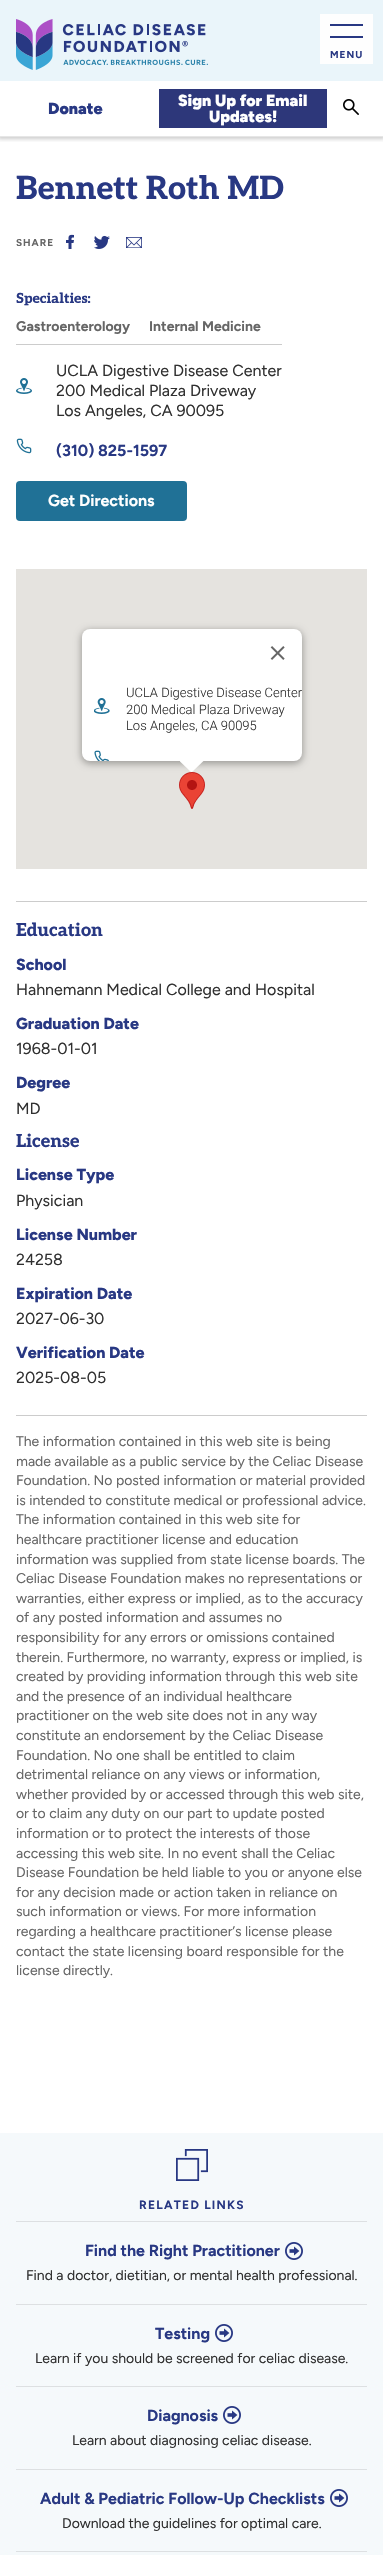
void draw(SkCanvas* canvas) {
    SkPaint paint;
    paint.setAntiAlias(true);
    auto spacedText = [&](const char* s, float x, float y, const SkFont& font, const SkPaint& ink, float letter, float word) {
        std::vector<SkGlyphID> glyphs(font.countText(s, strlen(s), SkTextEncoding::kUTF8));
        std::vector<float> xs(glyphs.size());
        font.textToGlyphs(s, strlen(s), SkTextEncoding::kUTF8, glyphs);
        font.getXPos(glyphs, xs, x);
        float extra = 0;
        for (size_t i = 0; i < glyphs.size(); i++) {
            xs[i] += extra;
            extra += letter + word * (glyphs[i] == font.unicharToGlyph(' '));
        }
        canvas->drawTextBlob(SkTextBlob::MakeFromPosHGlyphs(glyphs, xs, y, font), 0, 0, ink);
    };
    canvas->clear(0xFFFFFFFF);
    canvas->save();
    canvas->clipRect(SkRect::MakeXYWH(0, 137, 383, 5));
    paint.setColor(0x33000000);
    paint.setMaskFilter(SkMaskFilter::MakeBlur(kNormal_SkBlurStyle, 2));
    canvas->drawRect(SkRect::MakeXYWH(-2, -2, 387, 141), paint);
    paint.setMaskFilter(nullptr);
    canvas->restore();
    paint.setColor(0xFFEAF5FA);
    canvas->drawRect(SkRect::MakeXYWH(0, 0, 383, 81), paint);
    canvas->drawImageRect(SkImages::DeferredFromEncodedData(SkData::MakeFromFileName("img1.png")), SkRect::MakeXYWH(16, 19, 192, 51), SkSamplingOptions());
    paint.setColor(0xFFFEFEFE);
    canvas->drawRect(SkRect::MakeXYWH(320, 14, 53, 50), paint);
    paint.setColor(0xFF283883);
    canvas->drawRect(SkRect::MakeXYWH(330, 24, 33, 2), paint);
    canvas->drawRect(SkRect::MakeXYWH(330, 36, 33, 2), paint);
    SkFont font1(fontMgr->matchFamilyStyle("Figtree", SkFontStyle::Bold()), 10);
    font1.setSubpixel(true);
    spacedText("MENU", 330, 58, font1, paint, 1, 0);
    paint.setColor(0xFFE6E6E6);
    canvas->drawRect(SkRect::MakeXYWH(0, 136, 383, 1), paint);
    SkFont font2(fontMgr->matchFamilyStyle("Figtree", SkFontStyle(900, SkFontStyle::kNormal_Width, SkFontStyle::kUpright_Slant)), 16);
    font2.setSubpixel(true);
    paint.setColor(0xFF283883);
    canvas->drawString("Donate", 48, 114, font2, paint);
    paint.setColor(0xFF2D377A);
    canvas->drawRect(SkRect::MakeXYWH(159, 89, 168, 39), paint);
    paint.setColor(0xFFFFFFFF);
    canvas->drawString("Sign Up for Email", 178, 106, font2, paint);
    canvas->drawString("Updates!", 209, 122, font2, paint);
    canvas->drawImageRect(SkImages::DeferredFromEncodedData(SkData::MakeFromFileName("img2.png")), SkRect::MakeXYWH(343, 99, 16, 16), SkSamplingOptions());
    SkFont font3(fontMgr->matchFamilyStyle("Aleo", SkFontStyle(800, SkFontStyle::kNormal_Width, SkFontStyle::kUpright_Slant)), 32);
    font3.setSubpixel(true);
    paint.setColor(0xFF283883);
    canvas->drawString("Bennett Roth MD", 16, 199, font3, paint);
    paint.setColor(0xFF666666);
    spacedText("SHARE", 16, 246, font1, paint, 1, 0);
    canvas->drawImageRect(SkImages::DeferredFromEncodedData(SkData::MakeFromFileName("img3.png")), SkRect::MakeXYWH(66, 234, 8, 15), SkSamplingOptions());
    canvas->drawImageRect(SkImages::DeferredFromEncodedData(SkData::MakeFromFileName("img4.png")), SkRect::MakeXYWH(94, 235, 16, 14), SkSamplingOptions());
    canvas->drawImageRect(SkImages::DeferredFromEncodedData(SkData::MakeFromFileName("img5.png")), SkRect::MakeXYWH(126, 237, 16, 11), SkSamplingOptions());
    SkFont font4(fontMgr->matchFamilyStyle("Aleo", SkFontStyle(800, SkFontStyle::kNormal_Width, SkFontStyle::kUpright_Slant)), 14);
    font4.setSubpixel(true);
    paint.setColor(0xFF283883);
    canvas->drawString("Specialties:", 16, 303, font4, paint);
    paint.setColor(0xFFCCCCCC);
    canvas->drawRect(SkRect::MakeXYWH(16, 344, 266, 1), paint);
    SkFont font5(fontMgr->matchFamilyStyle("Figtree", SkFontStyle::Bold()), 14);
    font5.setSubpixel(true);
    paint.setColor(0xFF666666);
    canvas->drawString("Gastroenterology", 16, 331, font5, paint);
    canvas->drawString("Internal Medicine", 149, 331, font5, paint);
    canvas->drawImageRect(SkImages::DeferredFromEncodedData(SkData::MakeFromFileName("img6.png")), SkRect::MakeXYWH(16, 378, 16, 16), SkSamplingOptions());
    SkFont font6(fontMgr->matchFamilyStyle("Figtree", SkFontStyle::Normal()), 16);
    font6.setSubpixel(true);
    paint.setColor(0xFF303030);
    canvas->drawString("UCLA Digestive Disease Center", 56, 376, font6, paint);
    canvas->drawString("200 Medical Plaza Driveway", 56, 396, font6, paint);
    canvas->drawString("Los Angeles, CA 90095", 56, 416, font6, paint);
    canvas->drawImageRect(SkImages::DeferredFromEncodedData(SkData::MakeFromFileName("img7.png")), SkRect::MakeXYWH(16, 438, 16, 16), SkSamplingOptions());
    SkFont font7(fontMgr->matchFamilyStyle("Figtree", SkFontStyle::Bold()), 16);
    font7.setSubpixel(true);
    paint.setColor(0xFF283883);
    canvas->drawString("(310) 825-1597", 56, 456, font7, paint);
    paint.setColor(0xFF207196);
    canvas->drawRoundRect(SkRect::MakeXYWH(16, 481, 171, 40), 4, 4, paint);
    paint.setColor(0xFFFFFFFF);
    canvas->drawString("Get Directions", 48, 506, font7, paint);
    paint.setColor(0xFFE5E3DF);
    canvas->drawRect(SkRect::MakeXYWH(16, 569, 351, 300), paint);
    canvas->drawImageRect(SkImages::DeferredFromEncodedData(SkData::MakeFromFileName("img11.png")), SkRect::MakeXYWH(179, 772, 26, 37), SkSamplingOptions());
    paint.setColor(0x4D000000);
    paint.setMaskFilter(SkMaskFilter::MakeBlur(kNormal_SkBlurStyle, 3.5f));
    canvas->drawRoundRect(SkRect::MakeXYWH(81, 630, 222, 134), 9, 9, paint);
    paint.setMaskFilter(nullptr);
    paint.setColor(0xFFFFFFFF);
    canvas->drawRoundRect(SkRect::MakeXYWH(82, 629, 220, 132), 8, 8, paint);
    canvas->drawImageRect(SkImages::DeferredFromEncodedData(SkData::MakeFromFileName("img8.png")), SkRect::MakeXYWH(270, 646, 15, 14), SkSamplingOptions());
    canvas->drawImageRect(SkImages::DeferredFromEncodedData(SkData::MakeFromFileName("img9.png")), SkRect::MakeXYWH(94, 698, 16, 16), SkSamplingOptions());
    SkFont font8(fontMgr->matchFamilyStyle("Roboto", SkFontStyle(300, SkFontStyle::kNormal_Width, SkFontStyle::kUpright_Slant)), 13);
    font8.setSubpixel(true);
    paint.setColor(0xFF303030);
    canvas->drawString("UCLA Digestive Disease Center", 126, 697, font8, paint);
    canvas->drawString("200 Medical Plaza Driveway", 126, 714, font8, paint);
    canvas->drawString("Los Angeles, CA 90095", 126, 730, font8, paint);
    canvas->drawImageRect(SkImages::DeferredFromEncodedData(SkData::MakeFromFileName("img10.png")), SkRect::MakeXYWH(94, 750, 15, 11), SkSamplingOptions());
    paint.setColor(0xFFFFFFFF);
    canvas->drawPath(SkPathBuilder().moveTo(180, 761.5f).lineTo(180, 760.5f).lineTo(204, 760.5f).lineTo(192, 772).lineTo(191, 772).close().detach(), paint);
    paint.setColor(0xFFCCCCCC);
    canvas->drawRect(SkRect::MakeXYWH(16, 901, 351, 1), paint);
    SkFont font9(fontMgr->matchFamilyStyle("Aleo", SkFontStyle(800, SkFontStyle::kNormal_Width, SkFontStyle::kUpright_Slant)), 18);
    font9.setSubpixel(true);
    paint.setColor(0xFF283883);
    canvas->drawString("Education", 16, 936, font9, paint);
    SkFont font10(fontMgr->matchFamilyStyle("Figtree", SkFontStyle(800, SkFontStyle::kNormal_Width, SkFontStyle::kUpright_Slant)), 16);
    font10.setSubpixel(true);
    canvas->drawString("School", 16, 970, font10, paint);
    paint.setColor(0xFF303030);
    canvas->drawString("Hahnemann Medical College and Hospital", 16, 995, font6, paint);
    paint.setColor(0xFF283883);
    canvas->drawString("Graduation Date", 16, 1029, font10, paint);
    paint.setColor(0xFF303030);
    canvas->drawString("1968-01-01", 16, 1054, font6, paint);
    paint.setColor(0xFF283883);
    canvas->drawString("Degree", 16, 1088, font10, paint);
    paint.setColor(0xFF303030);
    canvas->drawString("MD", 16, 1114, font6, paint);
    paint.setColor(0xFF283883);
    canvas->drawString("License", 16, 1147, font9, paint);
    canvas->drawString("License Type", 16, 1180, font10, paint);
    paint.setColor(0xFF303030);
    canvas->drawString("Physician", 16, 1206, font6, paint);
    paint.setColor(0xFF283883);
    canvas->drawString("License Number", 16, 1240, font10, paint);
    paint.setColor(0xFF303030);
    canvas->drawString("24258", 16, 1265, font6, paint);
    paint.setColor(0xFF283883);
    canvas->drawString("Expiration Date", 16, 1299, font10, paint);
    paint.setColor(0xFF303030);
    canvas->drawString("2027-06-30", 16, 1324, font6, paint);
    paint.setColor(0xFF283883);
    canvas->drawString("Verification Date", 16, 1358, font10, paint);
    paint.setColor(0xFF303030);
    canvas->drawString("2025-08-05", 16, 1383, font6, paint);
    paint.setColor(0xFFCCCCCC);
    canvas->drawRect(SkRect::MakeXYWH(16, 1415, 351, 1), paint);
    SkFont font11(fontMgr->matchFamilyStyle("Figtree", SkFontStyle::Normal()), 14);
    font11.setSubpixel(true);
    paint.setColor(0xFF666666);
    canvas->drawString("The information contained in this web site is being", 16, 1446, font11, paint);
    canvas->drawString("made available as a public service by the Celiac Disease", 16, 1466, font11, paint);
    canvas->drawString("Foundation. No posted information or material provided", 16, 1485, font11, paint);
    canvas->drawString("is intended to constitute medical or professional advice.", 16, 1505, font11, paint);
    canvas->drawString("The information contained in this web site for", 16, 1524, font11, paint);
    canvas->drawString("healthcare practitioner license and education", 16, 1544, font11, paint);
    canvas->drawString("information was supplied from state license boards. The", 16, 1564, font11, paint);
    canvas->drawString("Celiac Disease Foundation makes no representations or", 16, 1583, font11, paint);
    canvas->drawString("warranties, either express or implied, as to the accuracy", 16, 1603, font11, paint);
    canvas->drawString("of any posted information and assumes no", 16, 1622, font11, paint);
    canvas->drawString("responsibility for any errors or omissions contained", 16, 1642, font11, paint);
    canvas->drawString("therein. Furthermore, no warranty, express or implied, is", 16, 1662, font11, paint);
    canvas->drawString("created by providing information through this web site", 16, 1681, font11, paint);
    canvas->drawString("and the presence of an individual healthcare", 16, 1701, font11, paint);
    canvas->drawString("practitioner on the web site does not in any way", 16, 1720, font11, paint);
    canvas->drawString("constitute an endorsement by the Celiac Disease", 16, 1740, font11, paint);
    canvas->drawString("Foundation. No one shall be entitled to claim", 16, 1760, font11, paint);
    canvas->drawString("detrimental reliance on any views or information,", 16, 1779, font11, paint);
    canvas->drawString("whether provided by or accessed through this web site,", 16, 1799, font11, paint);
    canvas->drawString("or to claim any duty on our part to update posted", 16, 1818, font11, paint);
    canvas->drawString("information or to protect the interests of those", 16, 1838, font11, paint);
    canvas->drawString("accessing this web site. In no event shall the Celiac", 16, 1858, font11, paint);
    canvas->drawString("Disease Foundation be held liable to you or anyone else", 16, 1877, font11, paint);
    canvas->drawString("for any decision made or action taken in reliance on", 16, 1897, font11, paint);
    canvas->drawString("such information or views. For more information", 16, 1916, font11, paint);
    canvas->drawString("regarding a healthcare practitioner’s license please", 16, 1936, font11, paint);
    canvas->drawString("contact the state licensing board responsible for the", 16, 1956, font11, paint);
    canvas->drawString("license directly.", 16, 1975, font11, paint);
    paint.setColor(0xFFF5F9FB);
    canvas->drawRect(SkRect::MakeXYWH(0, 2133, 383, 422), paint);
    canvas->drawImageRect(SkImages::DeferredFromEncodedData(SkData::MakeFromFileName("img12.png")), SkRect::MakeXYWH(176, 2149, 32, 32), SkSamplingOptions());
    paint.setColor(0xFFDDE0E2);
    canvas->drawRect(SkRect::MakeXYWH(16, 2221, 351, 1), paint);
    SkFont font12(fontMgr->matchFamilyStyle("Figtree", SkFontStyle::Bold()), 12);
    font12.setSubpixel(true);
    paint.setColor(0xFF283883);
    spacedText("RELATED LINKS", 139, 2209, font12, paint, 1.25f, 0);
    canvas->drawString("Find the Right Practitioner", 85, 2256, font7, paint);
    canvas->drawImageRect(SkImages::DeferredFromEncodedData(SkData::MakeFromFileName("img13.png")), SkRect::MakeXYWH(285, 2242, 18, 18), SkSamplingOptions());
    paint.setColor(0xFFDDE0E2);
    canvas->drawRect(SkRect::MakeXYWH(16, 2304, 351, 1), paint);
    paint.setColor(0xFF303030);
    canvas->drawString("Find a doctor, dietitian, or mental health professional.", 26, 2280, font11, paint);
    paint.setColor(0xFF283883);
    canvas->drawString("Testing", 155, 2339, font7, paint);
    canvas->drawImageRect(SkImages::DeferredFromEncodedData(SkData::MakeFromFileName("img13.png")), SkRect::MakeXYWH(215, 2324, 18, 18), SkSamplingOptions());
    paint.setColor(0xFFDDE0E2);
    canvas->drawRect(SkRect::MakeXYWH(16, 2386, 351, 1), paint);
    paint.setColor(0xFF303030);
    canvas->drawString("Learn if you should be screened for celiac disease.", 35, 2363, font11, paint);
    paint.setColor(0xFF283883);
    canvas->drawString("Diagnosis", 147, 2421, font7, paint);
    canvas->drawImageRect(SkImages::DeferredFromEncodedData(SkData::MakeFromFileName("img13.png")), SkRect::MakeXYWH(223, 2406, 18, 18), SkSamplingOptions());
    paint.setColor(0xFFDDE0E2);
    canvas->drawRect(SkRect::MakeXYWH(16, 2469, 351, 1), paint);
    paint.setColor(0xFF303030);
    canvas->drawString("Learn about diagnosing celiac disease.", 72, 2445, font11, paint);
    paint.setColor(0xFF283883);
    canvas->drawString("Adult & Pediatric Follow-Up Checklists", 40, 2504, font7, paint);
    canvas->drawImageRect(SkImages::DeferredFromEncodedData(SkData::MakeFromFileName("img13.png")), SkRect::MakeXYWH(330, 2489, 18, 18), SkSamplingOptions());
    paint.setColor(0xFFDDE0E2);
    canvas->drawRect(SkRect::MakeXYWH(16, 2551, 351, 1), paint);
    paint.setColor(0xFF303030);
    canvas->drawString("Download the guidelines for optimal care.", 62, 2528, font11, paint);
}
